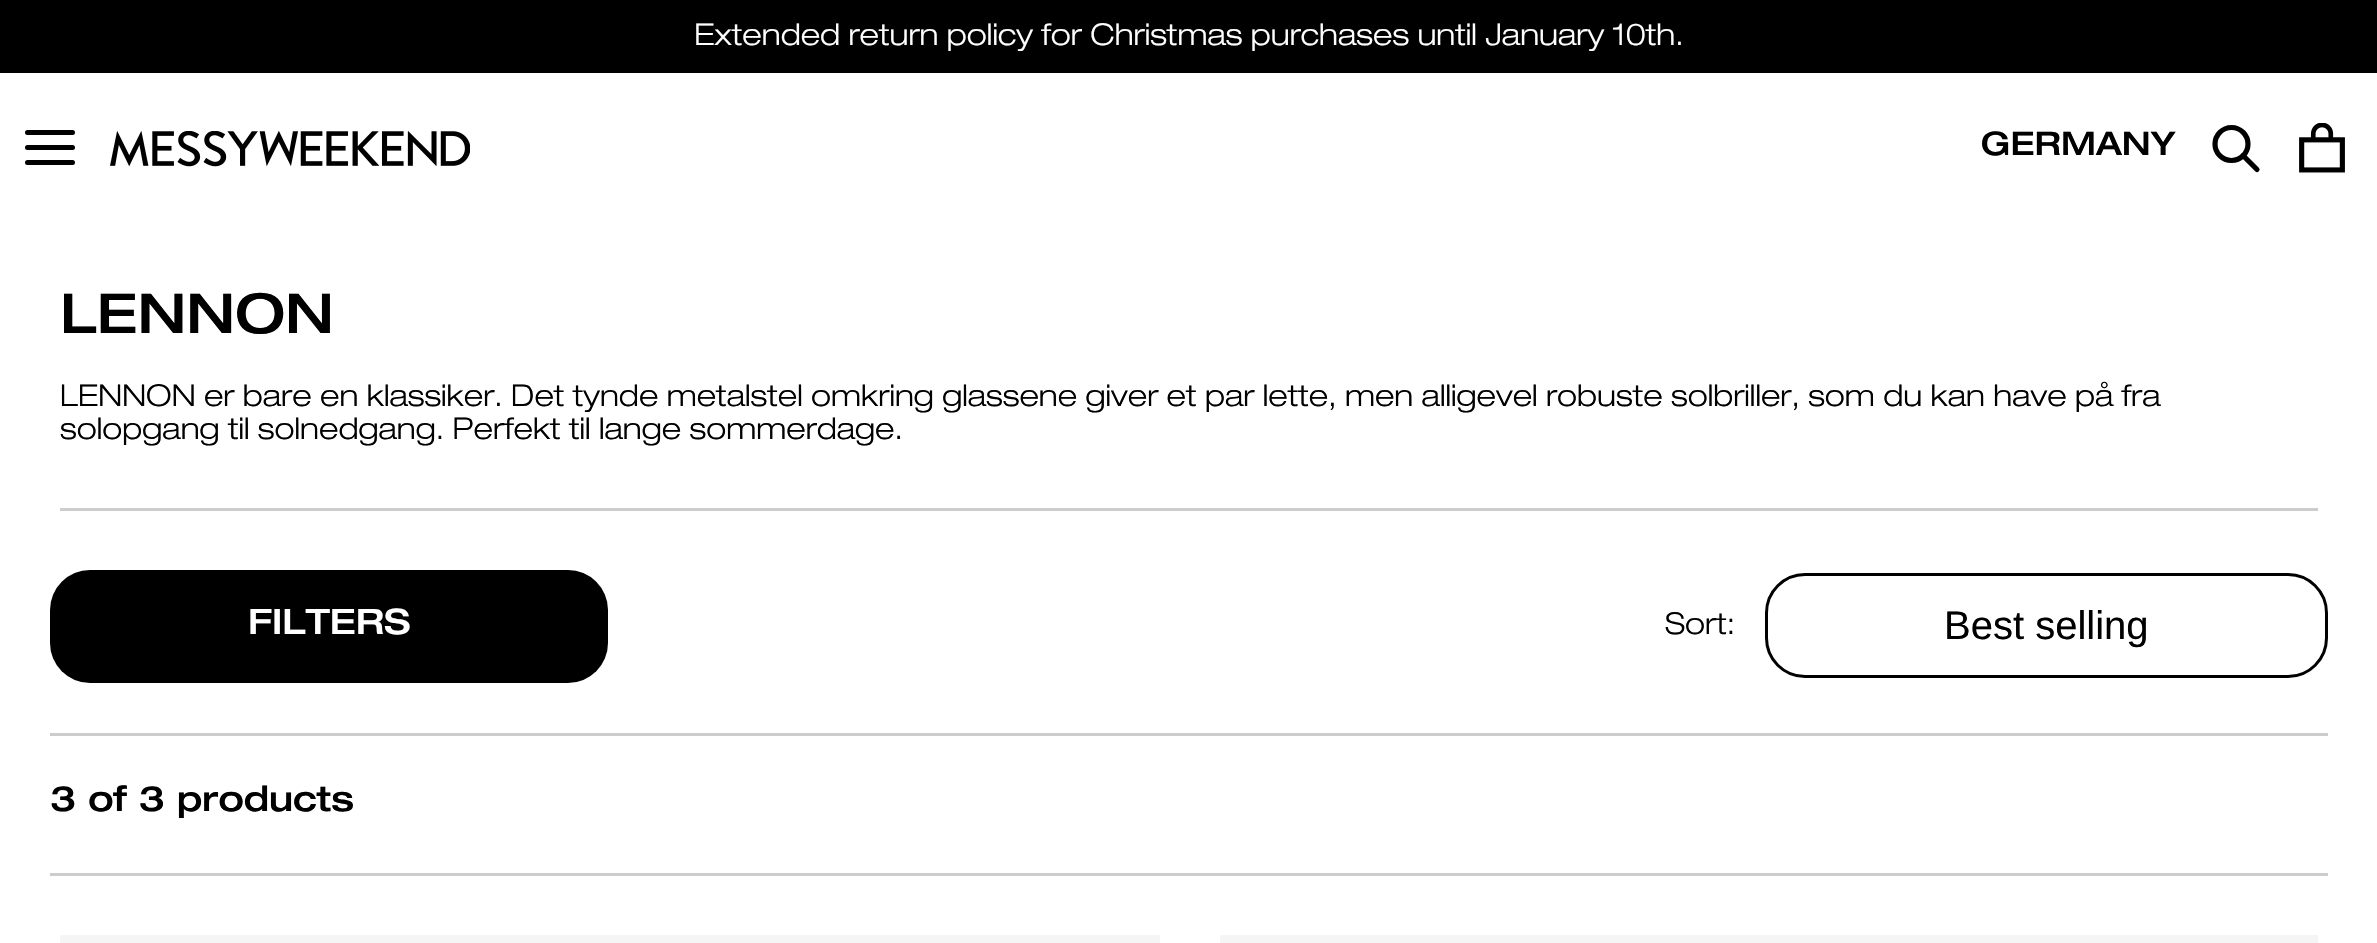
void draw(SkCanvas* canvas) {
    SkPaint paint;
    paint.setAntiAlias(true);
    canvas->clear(0xFFFFFFFF);
    paint.setColor(0xFF000000);
    canvas->drawRect(SkRect::MakeXYWH(0, 0, 2377, 73), paint);
    SkFont font1(fontMgr->matchFamilyStyle("Helvetica Neue", SkFontStyle(300, SkFontStyle::kNormal_Width, SkFontStyle::kUpright_Slant)), 30);
    font1.setSubpixel(true);
    paint.setColor(0xFFFFFFFF);
    canvas->drawString("Extended return policy for Christmas purchases until January 10th.", 694, 45, font1, paint);
    paint.setStyle(SkPaint::kStroke_Style);
    paint.setStrokeWidth(5);
    paint.setStrokeCap(SkPaint::kRound_Cap);
    paint.setStrokeJoin(SkPaint::kRound_Join);
    paint.setColor(0xFF000000);
    canvas->drawPath(SkPathBuilder().moveTo(27.5f, 147.5f).lineTo(72.5f, 147.5f).moveTo(27.5f, 132.5f).lineTo(72.5f, 132.5f).moveTo(27.5f, 162.5f).lineTo(72.5f, 162.5f).detach(), paint);
    canvas->drawImageRect(SkImages::DeferredFromEncodedData(SkData::MakeFromFileName("img1.png")), SkRect::MakeXYWH(110, 131, 360, 36), SkSamplingOptions());
    SkFont font2(fontMgr->matchFamilyStyle("Helvetica Neue", SkFontStyle(500, SkFontStyle::kNormal_Width, SkFontStyle::kUpright_Slant)), 32.5f);
    font2.setSubpixel(true);
    paint.setStyle(SkPaint::kFill_Style);
    canvas->drawString("GERMANY", 1981, 155, font2, paint);
    paint.setStyle(SkPaint::kStroke_Style);
    paint.setStrokeWidth(5.2f);
    paint.setStrokeCap(SkPaint::kButt_Cap);
    paint.setStrokeJoin(SkPaint::kMiter_Join);
    canvas->drawCircle(2231.5f, 144, 16.5f, paint);
    paint.setStrokeCap(SkPaint::kRound_Cap);
    canvas->drawPath(SkPathBuilder().moveTo(2243, 155.5f).lineTo(2257, 169.5f).detach(), paint);
    canvas->drawImageRect(SkImages::DeferredFromEncodedData(SkData::MakeFromFileName("img2.png")), SkRect::MakeXYWH(2299, 123, 46, 50), SkSamplingOptions());
    paint.setStyle(SkPaint::kFill_Style);
    paint.setColor(0xFFCCCCCC);
    canvas->drawRect(SkRect::MakeXYWH(60, 508, 2258, 3), paint);
    SkFont font3(fontMgr->matchFamilyStyle("Helvetica Neue", SkFontStyle(500, SkFontStyle::kNormal_Width, SkFontStyle::kUpright_Slant)), 55);
    font3.setSubpixel(true);
    paint.setColor(0xFF000000);
    canvas->drawString("LENNON", 60, 333, font3, paint);
    canvas->drawString("LENNON er bare en klassiker. Det tynde metalstel omkring glassene giver et par lette, men alligevel robuste solbriller, som du kan have på fra", 60, 406, font1, paint);
    canvas->drawString("solopgang til solnedgang. Perfekt til lange sommerdage.", 60, 439, font1, paint);
    paint.setColor(0xFFCCCCCC);
    canvas->drawRect(SkRect::MakeXYWH(50, 733, 2278, 3), paint);
    paint.setColor(0xFF000000);
    canvas->drawRoundRect(SkRect::MakeXYWH(50, 570, 558, 113), 40, 40, paint);
    SkFont font4(fontMgr->matchFamilyStyle("Helvetica Neue", SkFontStyle(500, SkFontStyle::kNormal_Width, SkFontStyle::kUpright_Slant)), 35);
    font4.setSubpixel(true);
    paint.setColor(0xFFFFFFFF);
    canvas->drawString("FILTERS", 248, 634, font4, paint);
    paint.setColor(0xFF000000);
    canvas->drawString("Sort:", 1665, 634, font1, paint);
    paint.setStyle(SkPaint::kStroke_Style);
    paint.setStrokeWidth(3);
    paint.setStrokeCap(SkPaint::kButt_Cap);
    canvas->drawRoundRect(SkRect::MakeXYWH(1766.5f, 574.5f, 560, 102), 38.5f, 38.5f, paint);
    SkFont font5(fontMgr->matchFamilyStyle("Liberation Sans", SkFontStyle::Normal()), 40);
    font5.setSubpixel(true);
    paint.setStyle(SkPaint::kFill_Style);
    canvas->drawString("Best selling", 1944, 639, font5, paint);
    paint.setColor(0xFFCCCCCC);
    canvas->drawRect(SkRect::MakeXYWH(50, 873, 2278, 3), paint);
    paint.setColor(0xFF000000);
    canvas->drawString("3 of 3 products", 50, 811, font4, paint);
    paint.setColor(0xFFF5F5F5);
    canvas->drawRect(SkRect::MakeXYWH(60, 935, 1100, 8), paint);
    canvas->drawRect(SkRect::MakeXYWH(1220, 935, 1098, 8), paint);
}
